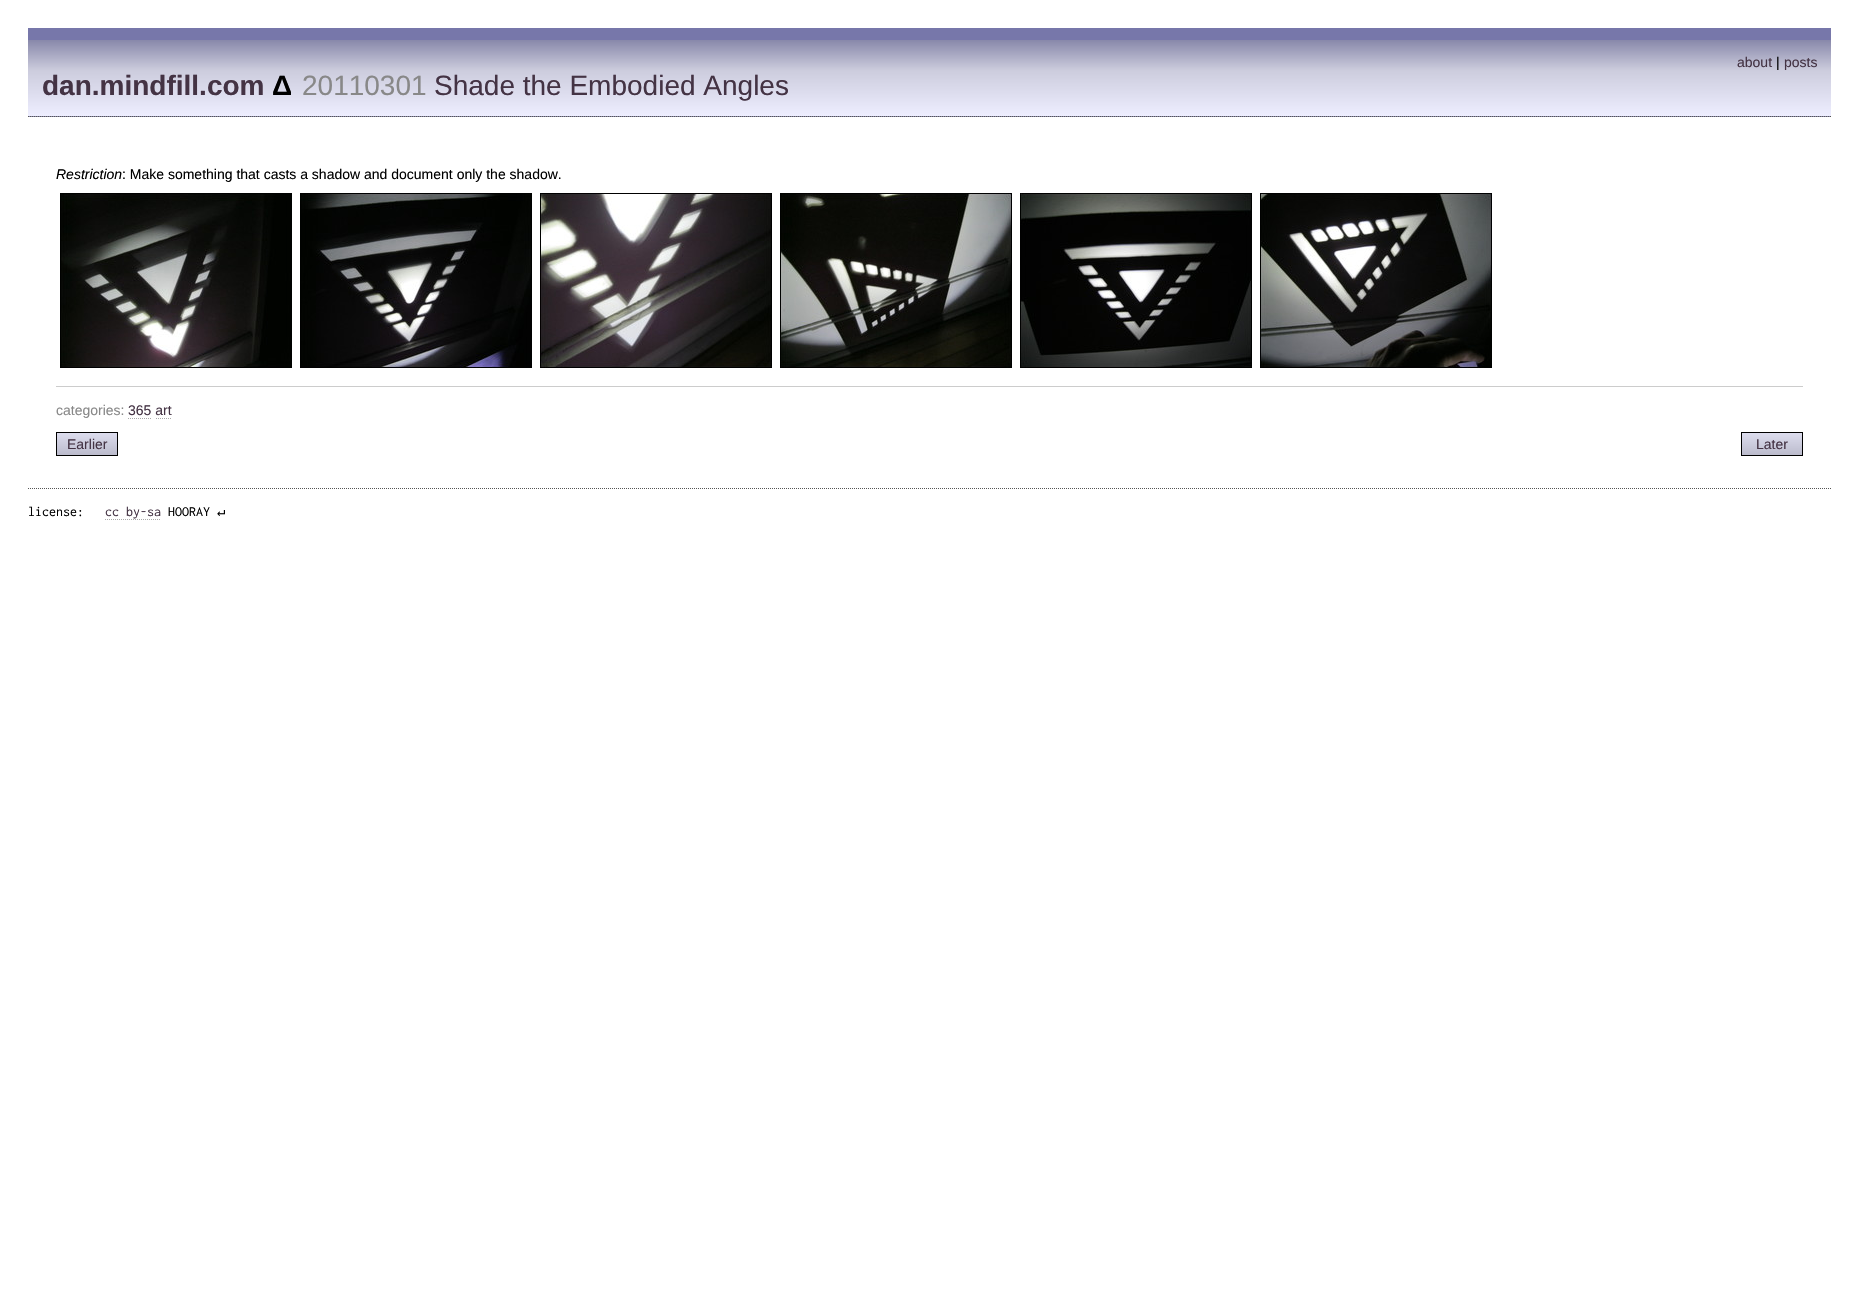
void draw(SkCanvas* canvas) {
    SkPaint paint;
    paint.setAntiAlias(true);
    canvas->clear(0xFFFFFFFF);
    {
        const SkColor colors[] = {0xFF8888AA, 0xFFCCCCDD, 0xFFEEEEFF};
        const float stops[] = {0, 0.4f, 1};
        const SkPoint ends[] = {{28, 40}, {28, 116}};
        paint.setShader(SkGradientShader::MakeLinear(ends, colors, stops, 3, SkTileMode::kClamp));
        paint.setAlpha(255);
    }
    canvas->drawRect(SkRect::MakeXYWH(28, 40, 1803, 76), paint);
    {
        const SkColor colors[] = {0xFF8888AA, 0xFFCCCCDD, 0xFFEEEEFF};
        const float stops[] = {0, 0.4f, 1};
        const SkPoint ends[] = {{28, 116}, {28, 192}};
        paint.setShader(SkGradientShader::MakeLinear(ends, colors, stops, 3, SkTileMode::kClamp));
        paint.setAlpha(255);
    }
    canvas->drawRect(SkRect::MakeXYWH(28, 116, 1803, 1), paint);
    paint.setShader(nullptr);
    paint.setColor(0xFF7777AA);
    canvas->drawRect(SkRect::MakeXYWH(28, 28, 1803, 12), paint);
    paint.setStyle(SkPaint::kStroke_Style);
    paint.setStrokeWidth(1);
    paint.setColor(0xFF555555);
    paint.setPathEffect(SkDashPathEffect::Make({{1, 1}}, 0));
    canvas->drawPath(SkPathBuilder().moveTo(28, 116.5f).lineTo(1831, 116.5f).detach(), paint);
    paint.setPathEffect(nullptr);
    SkFont font1(fontMgr->matchFamilyStyle("Liberation Sans", SkFontStyle::Normal()), 14);
    font1.setSubpixel(true);
    paint.setStyle(SkPaint::kFill_Style);
    paint.setColor(0xFF443344);
    canvas->drawString("about", 1737, 67, font1, paint);
    paint.setColor(0xFF000000);
    canvas->drawString("|", 1776, 67, font1, paint);
    paint.setColor(0xFF443344);
    canvas->drawString("posts", 1784, 67, font1, paint);
    SkFont font2(fontMgr->matchFamilyStyle("Liberation Sans", SkFontStyle::Bold()), 28);
    font2.setSubpixel(true);
    canvas->drawString("dan.mindfill.com", 42, 95, font2, paint);
    paint.setColor(0xFF000000);
    canvas->drawString("Δ", 272, 95, font2, paint);
    SkFont font3(fontMgr->matchFamilyStyle("Liberation Sans", SkFontStyle::Normal()), 28);
    font3.setSubpixel(true);
    paint.setColor(0xFF888888);
    canvas->drawString("20110301", 302, 95, font3, paint);
    paint.setColor(0xFF443344);
    canvas->drawString("Shade the Embodied Angles", 434, 95, font3, paint);
    SkFont font4(fontMgr->matchFamilyStyle("Liberation Sans", SkFontStyle::Italic()), 14);
    font4.setSubpixel(true);
    paint.setColor(0xFF000000);
    canvas->drawString("Restriction", 56, 179, font4, paint);
    canvas->drawString(": Make something that casts a shadow and document only the shadow.", 122, 179, font1, paint);
    canvas->drawImageRect(SkImages::DeferredFromEncodedData(SkData::MakeFromFileName("img1.png")), SkRect::MakeXYWH(60, 193, 232, 175), SkSamplingOptions());
    canvas->drawImageRect(SkImages::DeferredFromEncodedData(SkData::MakeFromFileName("img2.png")), SkRect::MakeXYWH(300, 193, 232, 175), SkSamplingOptions());
    canvas->drawImageRect(SkImages::DeferredFromEncodedData(SkData::MakeFromFileName("img3.png")), SkRect::MakeXYWH(540, 193, 232, 175), SkSamplingOptions());
    canvas->drawImageRect(SkImages::DeferredFromEncodedData(SkData::MakeFromFileName("img4.png")), SkRect::MakeXYWH(780, 193, 232, 175), SkSamplingOptions());
    canvas->drawImageRect(SkImages::DeferredFromEncodedData(SkData::MakeFromFileName("img5.png")), SkRect::MakeXYWH(1020, 193, 232, 175), SkSamplingOptions());
    canvas->drawImageRect(SkImages::DeferredFromEncodedData(SkData::MakeFromFileName("img6.png")), SkRect::MakeXYWH(1260, 193, 232, 175), SkSamplingOptions());
    paint.setColor(0xFFCCCCCC);
    canvas->drawRect(SkRect::MakeXYWH(56, 386, 1747, 1), paint);
    paint.setColor(0xFF888888);
    canvas->drawString("categories:", 56, 415, font1, paint);
    paint.setColor(0xFF443344);
    canvas->drawString("365 art", 128, 415, font1, paint);
    paint.setStyle(SkPaint::kStroke_Style);
    paint.setColor(0xFFAAAAAA);
    paint.setPathEffect(SkDashPathEffect::Make({{1, 1}}, 0));
    canvas->drawPath(SkPathBuilder().moveTo(128, 418.5f).lineTo(152, 418.5f).detach(), paint);
    paint.setPathEffect(nullptr);
    paint.setPathEffect(SkDashPathEffect::Make({{1, 1}}, 0));
    canvas->drawPath(SkPathBuilder().moveTo(156, 418.5f).lineTo(172, 418.5f).detach(), paint);
    paint.setPathEffect(nullptr);
    paint.setStyle(SkPaint::kFill_Style);
    {
        const SkColor colors[] = {0xFFDDDDEE, 0xFFBBBBCC};
        const float stops[] = {0, 1};
        const SkPoint ends[] = {{57, 433}, {57, 455}};
        paint.setShader(SkGradientShader::MakeLinear(ends, colors, stops, 2, SkTileMode::kClamp));
        paint.setAlpha(255);
    }
    canvas->drawRect(SkRect::MakeXYWH(57, 433, 60, 22), paint);
    paint.setStyle(SkPaint::kStroke_Style);
    paint.setShader(nullptr);
    paint.setColor(0xFF000000);
    canvas->drawRect(SkRect::MakeXYWH(56.5f, 432.5f, 61, 23), paint);
    paint.setStyle(SkPaint::kFill_Style);
    paint.setColor(0xFF443344);
    canvas->drawString("Earlier", 67, 449, font1, paint);
    {
        const SkColor colors[] = {0xFFDDDDEE, 0xFFBBBBCC};
        const float stops[] = {0, 1};
        const SkPoint ends[] = {{1742, 433}, {1742, 455}};
        paint.setShader(SkGradientShader::MakeLinear(ends, colors, stops, 2, SkTileMode::kClamp));
        paint.setAlpha(255);
    }
    canvas->drawRect(SkRect::MakeXYWH(1742, 433, 60, 22), paint);
    paint.setStyle(SkPaint::kStroke_Style);
    paint.setShader(nullptr);
    paint.setColor(0xFF000000);
    canvas->drawRect(SkRect::MakeXYWH(1741.5f, 432.5f, 61, 23), paint);
    paint.setStyle(SkPaint::kFill_Style);
    paint.setColor(0xFF443344);
    canvas->drawString("Later", 1756, 449, font1, paint);
    paint.setStyle(SkPaint::kStroke_Style);
    paint.setColor(0xFF555555);
    paint.setPathEffect(SkDashPathEffect::Make({{1, 1}}, 0));
    canvas->drawPath(SkPathBuilder().moveTo(28, 488.5f).lineTo(1831, 488.5f).detach(), paint);
    paint.setPathEffect(nullptr);
    SkFont font5(fontMgr->matchFamilyStyle("Inconsolata", SkFontStyle::Normal()), 14);
    font5.setSubpixel(true);
    paint.setStyle(SkPaint::kFill_Style);
    paint.setColor(0xFF000000);
    canvas->drawString("license:", 28, 516, font5, paint);
    paint.setColor(0xFF443344);
    canvas->drawString("cc by-sa", 105, 516, font5, paint);
    paint.setStyle(SkPaint::kStroke_Style);
    paint.setColor(0xFFAAAAAA);
    paint.setPathEffect(SkDashPathEffect::Make({{1, 1}}, 0));
    canvas->drawPath(SkPathBuilder().moveTo(105, 519.5f).lineTo(161, 519.5f).detach(), paint);
    paint.setPathEffect(nullptr);
    paint.setStyle(SkPaint::kFill_Style);
    paint.setColor(0xFF000000);
    canvas->drawString("HOORAY", 168, 516, font5, paint);
    SkFont font6(fontMgr->matchFamilyStyle("DejaVu Sans Mono", SkFontStyle::Normal()), 14);
    font6.setSubpixel(true);
    canvas->drawString("↵", 217, 516, font6, paint);
}
